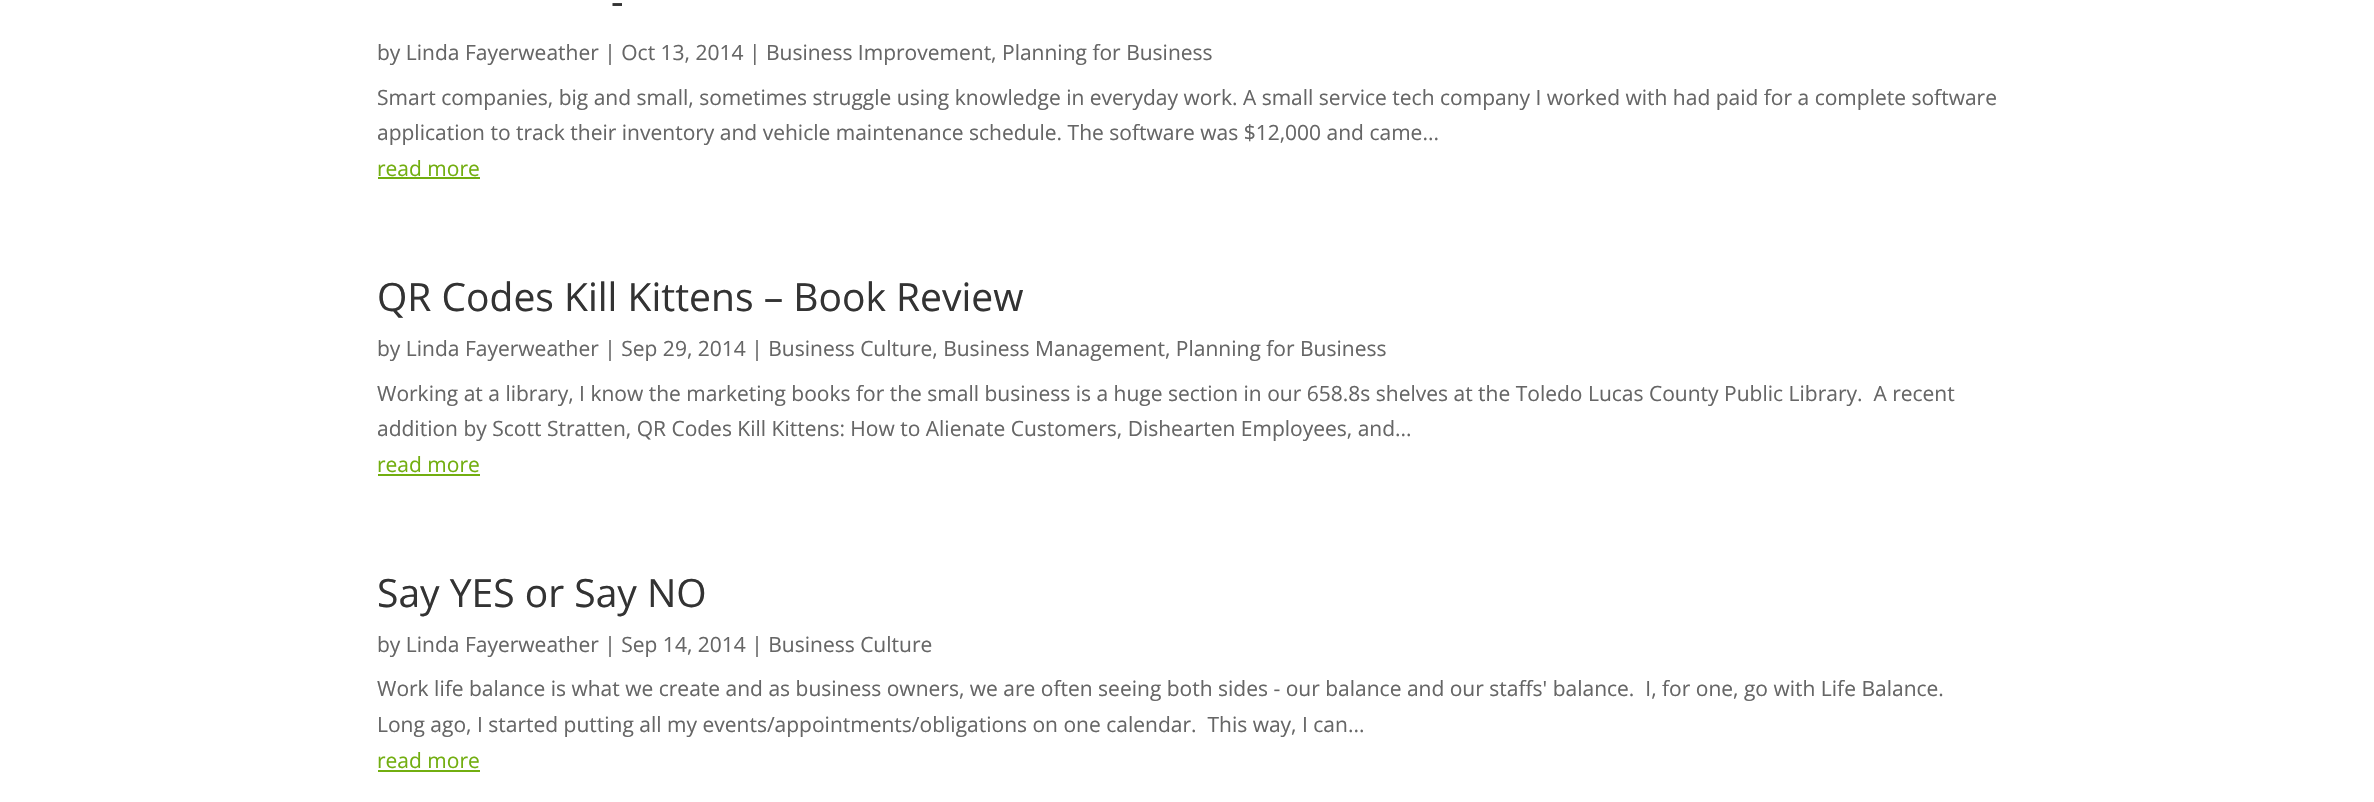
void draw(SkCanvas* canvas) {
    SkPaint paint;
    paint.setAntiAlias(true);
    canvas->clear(0xFFFFFFFF);
    SkFont font1(fontMgr->matchFamilyStyle("Open Sans", SkFontStyle::Normal()), 39);
    font1.setSubpixel(true);
    paint.setColor(0xFF333333);
    canvas->drawString("-", 611, 15, font1, paint);
    SkFont font2(fontMgr->matchFamilyStyle("Open Sans", SkFontStyle::Normal()), 21);
    font2.setSubpixel(true);
    paint.setColor(0xFF666666);
    canvas->drawString("by Linda Fayerweather | Oct 13, 2014 | Business Improvement, Planning for Business", 377, 60, font2, paint);
    canvas->drawString("Smart companies, big and small, sometimes struggle using knowledge in everyday work. A small service tech company I worked with had paid for a complete software", 377, 105, font2, paint);
    canvas->drawString("application to track their inventory and vehicle maintenance schedule. The software was $12,000 and came...", 377, 140, font2, paint);
    paint.setColor(0xFF72AE10);
    canvas->drawString("read more", 377, 176, font2, paint);
    canvas->drawRect(SkRect::MakeXYWH(378, 177, 102, 2), paint);
    paint.setColor(0xFF333333);
    canvas->drawString("QR Codes Kill Kittens – Book Review", 377, 311, font1, paint);
    paint.setColor(0xFF666666);
    canvas->drawString("by Linda Fayerweather | Sep 29, 2014 | Business Culture, Business Management, Planning for Business", 377, 356, font2, paint);
    canvas->drawString("Working at a library, I know the marketing books for the small business is a huge section in our 658.8s shelves at the Toledo Lucas County Public Library.  A recent", 377, 401, font2, paint);
    canvas->drawString("addition by Scott Stratten, QR Codes Kill Kittens: How to Alienate Customers, Dishearten Employees, and...", 377, 436, font2, paint);
    paint.setColor(0xFF72AE10);
    canvas->drawString("read more", 377, 472, font2, paint);
    canvas->drawRect(SkRect::MakeXYWH(378, 474, 102, 2), paint);
    paint.setColor(0xFF333333);
    canvas->drawString("Say YES or Say NO", 377, 607, font1, paint);
    paint.setColor(0xFF666666);
    canvas->drawString("by Linda Fayerweather | Sep 14, 2014 | Business Culture", 377, 652, font2, paint);
    canvas->drawString("Work life balance is what we create and as business owners, we are often seeing both sides - our balance and our staffs' balance.  I, for one, go with Life Balance.", 377, 696, font2, paint);
    canvas->drawString("Long ago, I started putting all my events/appointments/obligations on one calendar.  This way, I can...", 377, 732, font2, paint);
    paint.setColor(0xFF72AE10);
    canvas->drawString("read more", 377, 768, font2, paint);
    canvas->drawRect(SkRect::MakeXYWH(378, 770, 102, 2), paint);
}
